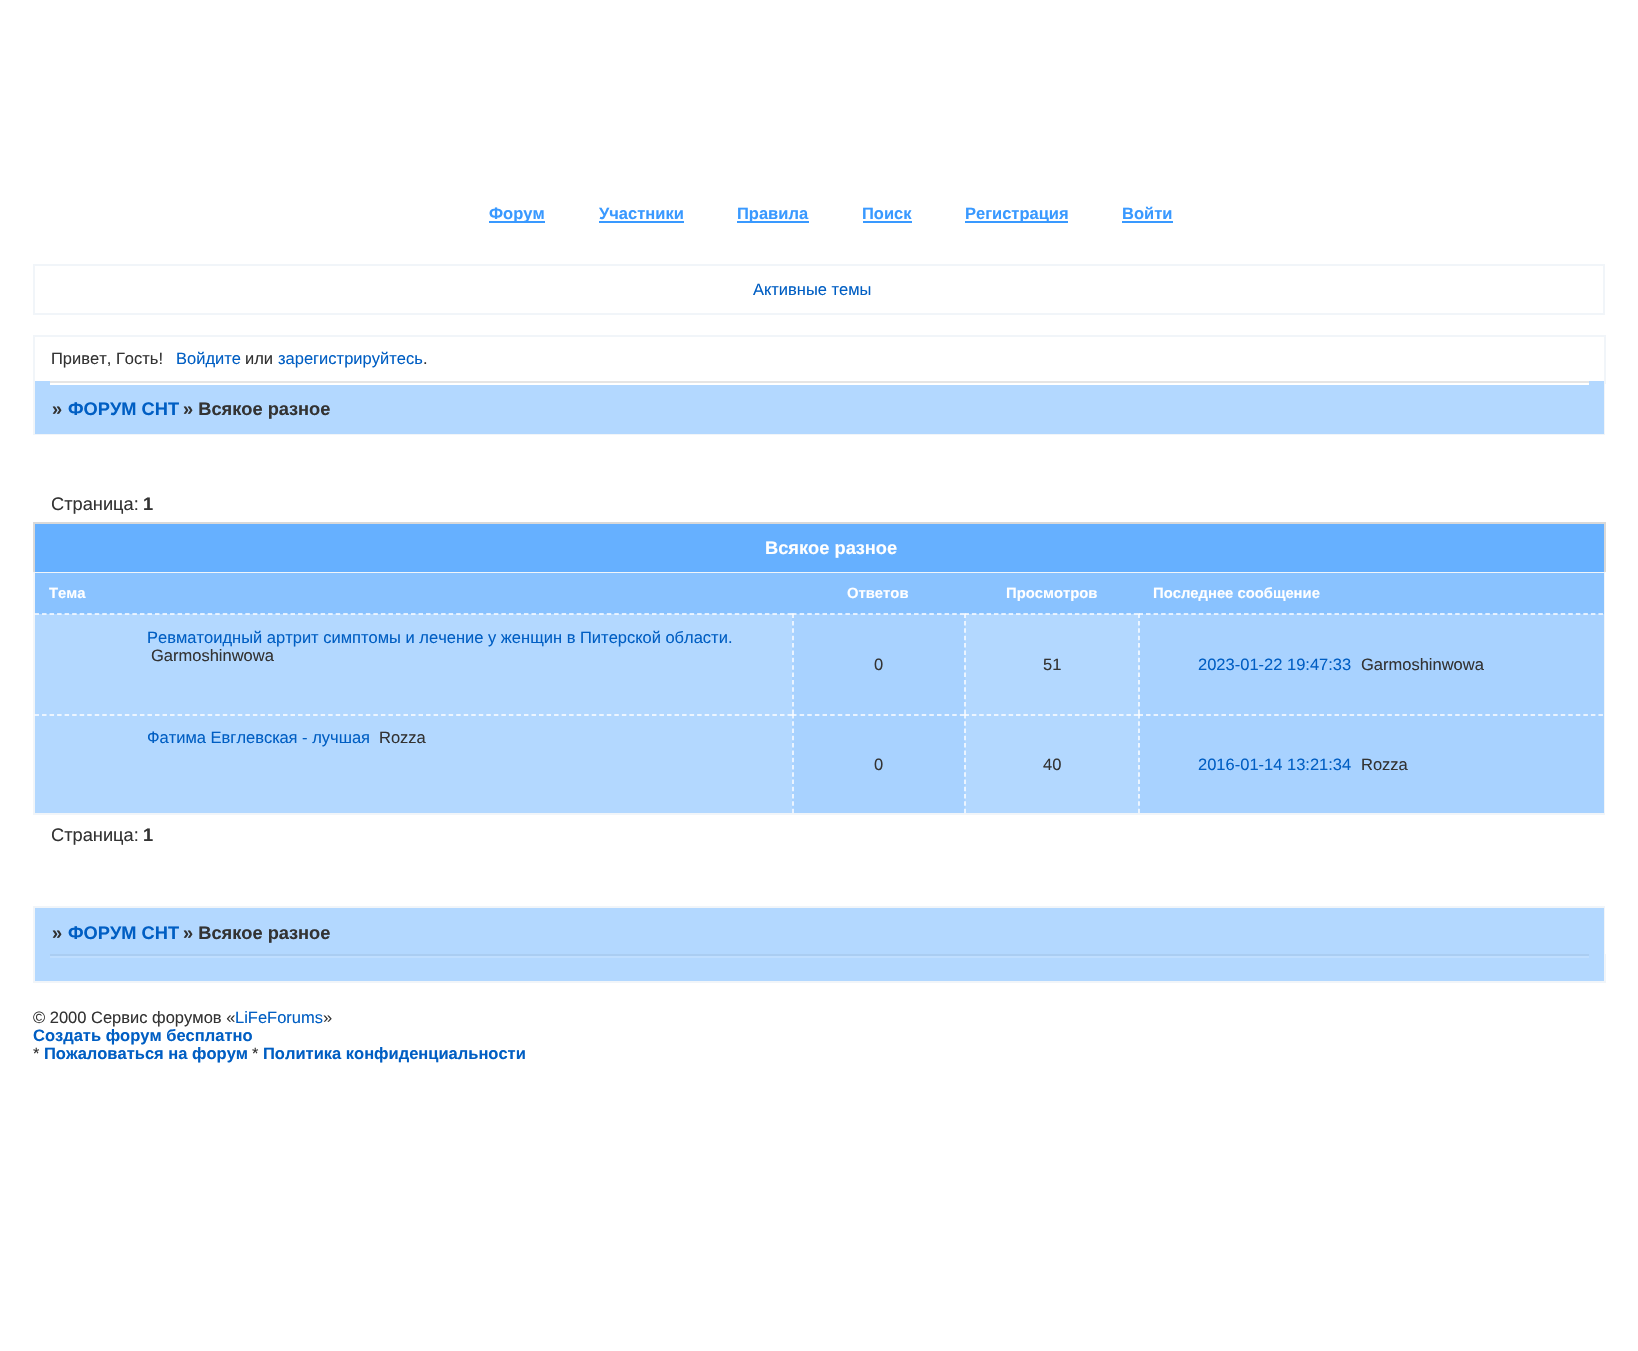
void draw(SkCanvas* canvas) {
    SkPaint paint;
    paint.setAntiAlias(true);
    canvas->clear(0xFFFFFFFF);
    paint.setColor(0xFF3999FF);
    canvas->drawRect(SkRect::MakeXYWH(489, 221, 56, 2), paint);
    SkFont font1(fontMgr->matchFamilyStyle("Liberation Sans", SkFontStyle::Bold()), 16.5f);
    font1.setSubpixel(true);
    canvas->drawString("Форум", 489, 219, font1, paint);
    canvas->drawString("Участники", 599, 219, font1, paint);
    canvas->drawRect(SkRect::MakeXYWH(599, 221, 85, 2), paint);
    canvas->drawRect(SkRect::MakeXYWH(737, 221, 72, 2), paint);
    canvas->drawString("Правила", 737, 219, font1, paint);
    canvas->drawString("Поиск", 862, 219, font1, paint);
    canvas->drawRect(SkRect::MakeXYWH(863, 221, 49, 2), paint);
    canvas->drawRect(SkRect::MakeXYWH(965, 221, 103, 2), paint);
    canvas->drawString("Регистрация", 965, 219, font1, paint);
    canvas->drawString("Войти", 1122, 219, font1, paint);
    canvas->drawRect(SkRect::MakeXYWH(1122, 221, 51, 2), paint);
    paint.setStyle(SkPaint::kStroke_Style);
    paint.setStrokeWidth(2);
    paint.setColor(0xFFF1F5F9);
    canvas->drawRect(SkRect::MakeXYWH(34, 265, 1570, 49), paint);
    SkFont font2(fontMgr->matchFamilyStyle("Liberation Sans", SkFontStyle::Normal()), 16.5f);
    font2.setSubpixel(true);
    paint.setStyle(SkPaint::kFill_Style);
    paint.setColor(0xFF005EC3);
    canvas->drawString("Активные темы", 753, 295, font2, paint);
    paint.setColor(0xFFF1F5F9);
    canvas->drawRect(SkRect::MakeXYWH(33, 335, 1572, 2), paint);
    canvas->drawRect(SkRect::MakeXYWH(1604, 335, 2, 49), paint);
    canvas->drawRect(SkRect::MakeXYWH(33, 335, 2, 49), paint);
    paint.setColor(0xFF333333);
    canvas->drawString("Привет, Гость!", 51, 364, font2, paint);
    paint.setColor(0xFF005EC3);
    canvas->drawString("Войдите", 176, 364, font2, paint);
    paint.setColor(0xFF333333);
    canvas->drawString("или", 245, 364, font2, paint);
    paint.setColor(0xFF005EC3);
    canvas->drawString("зарегистрируйтесь", 278, 364, font2, paint);
    paint.setColor(0xFF333333);
    canvas->drawString(".", 423, 364, font2, paint);
    paint.setColor(0xFFB3D8FF);
    canvas->drawRect(SkRect::MakeXYWH(35, 381, 1569, 53), paint);
    paint.setColor(0xFFE5E5E5);
    canvas->drawRect(SkRect::MakeXYWH(50, 381, 1539, 2), paint);
    paint.setColor(0xFFFFFFFF);
    canvas->drawRect(SkRect::MakeXYWH(50, 383, 1539, 2), paint);
    paint.setColor(0xFFF1F5F9);
    canvas->drawRect(SkRect::MakeXYWH(1604, 381, 1, 54), paint);
    canvas->drawRect(SkRect::MakeXYWH(33, 434, 1572, 1), paint);
    canvas->drawRect(SkRect::MakeXYWH(33, 381, 2, 54), paint);
    SkFont font3(fontMgr->matchFamilyStyle("Liberation Sans", SkFontStyle::Bold()), 18.25f);
    font3.setSubpixel(true);
    paint.setColor(0xFF333333);
    canvas->drawString("»", 52, 415, font3, paint);
    paint.setColor(0xFF005EC3);
    canvas->drawString("ФОРУМ СНТ", 68, 415, font3, paint);
    paint.setColor(0xFF333333);
    canvas->drawString("» Всякое разное", 183, 415, font3, paint);
    SkFont font4(fontMgr->matchFamilyStyle("Liberation Sans", SkFontStyle::Normal()), 18.25f);
    font4.setSubpixel(true);
    canvas->drawString("Страница:", 51, 510, font4, paint);
    canvas->drawString("1", 143, 510, font3, paint);
    paint.setColor(0xFF66B0FF);
    canvas->drawRect(SkRect::MakeXYWH(35, 524, 1569, 48), paint);
    paint.setColor(0xFFD9D9D9);
    canvas->drawRect(SkRect::MakeXYWH(33, 522, 1572, 2), paint);
    canvas->drawRect(SkRect::MakeXYWH(1604, 522, 2, 50), paint);
    canvas->drawRect(SkRect::MakeXYWH(33, 522, 2, 50), paint);
    paint.setColor(0xFFFFFFFF);
    canvas->drawString("Всякое разное", 765, 554, font3, paint);
    paint.setColor(0xFFB3D8FF);
    canvas->drawRect(SkRect::MakeXYWH(35, 614, 1104, 199), paint);
    paint.setStyle(SkPaint::kStroke_Style);
    paint.setColor(0xFFF1F5F9);
    canvas->drawRect(SkRect::MakeXYWH(34, 573, 1570, 241), paint);
    paint.setStyle(SkPaint::kFill_Style);
    paint.setColor(0xFF89C2FF);
    canvas->drawRect(SkRect::MakeXYWH(35, 573, 1569, 41), paint);
    SkFont font5(fontMgr->matchFamilyStyle("Liberation Sans", SkFontStyle::Bold()), 14.8f);
    font5.setSubpixel(true);
    paint.setColor(0xFFFFFFFF);
    canvas->drawString("Тема", 49, 598, font5, paint);
    canvas->drawString("Ответов", 847, 598, font5, paint);
    canvas->drawString("Просмотров", 1006, 598, font5, paint);
    canvas->drawString("Последнее сообщение", 1153, 598, font5, paint);
    paint.setStyle(SkPaint::kStroke_Style);
    paint.setStrokeWidth(1.5f);
    paint.setPathEffect(SkDashPathEffect::Make({{4.5f, 3.03f}}, 0));
    canvas->drawPath(SkPathBuilder().moveTo(34.5f, 614).lineTo(792, 614).detach(), paint);
    paint.setPathEffect(nullptr);
    paint.setStyle(SkPaint::kFill_Style);
    paint.setColor(0xFF005EC3);
    canvas->drawString("Ревматоидный артрит симптомы и лечение у женщин в Питерской области.", 147, 643, font2, paint);
    paint.setColor(0xFF333333);
    canvas->drawString("Garmoshinwowa", 151, 661, font2, paint);
    paint.setColor(0xFFA8D2FF);
    canvas->drawRect(SkRect::MakeXYWH(792, 614, 173, 199), paint);
    paint.setStyle(SkPaint::kStroke_Style);
    paint.setColor(0xFFFFFFFF);
    paint.setPathEffect(SkDashPathEffect::Make({{4.5f, 3.13f}}, 0));
    canvas->drawPath(SkPathBuilder().moveTo(792, 614).lineTo(964.5f, 614).detach(), paint);
    paint.setPathEffect(nullptr);
    paint.setPathEffect(SkDashPathEffect::Make({{4.5f, 2.88f}}, 0));
    canvas->drawPath(SkPathBuilder().moveTo(793, 613.5f).lineTo(793, 714).detach(), paint);
    paint.setPathEffect(nullptr);
    paint.setStyle(SkPaint::kFill_Style);
    paint.setColor(0xFF333333);
    canvas->drawString("0", 874, 670, font2, paint);
    paint.setStyle(SkPaint::kStroke_Style);
    paint.setColor(0xFFFFFFFF);
    paint.setPathEffect(SkDashPathEffect::Make({{4.5f, 2.86f}}, 0));
    canvas->drawPath(SkPathBuilder().moveTo(964.5f, 614).lineTo(1138.5f, 614).detach(), paint);
    paint.setPathEffect(nullptr);
    paint.setPathEffect(SkDashPathEffect::Make({{4.5f, 2.88f}}, 0));
    canvas->drawPath(SkPathBuilder().moveTo(965, 613.5f).lineTo(965, 714).detach(), paint);
    paint.setPathEffect(nullptr);
    paint.setStyle(SkPaint::kFill_Style);
    paint.setColor(0xFF333333);
    canvas->drawString("51", 1043, 670, font2, paint);
    paint.setColor(0xFFA8D2FF);
    canvas->drawRect(SkRect::MakeXYWH(1139, 614, 465, 199), paint);
    paint.setStyle(SkPaint::kStroke_Style);
    paint.setColor(0xFFFFFFFF);
    paint.setPathEffect(SkDashPathEffect::Make({{4.5f, 3.04f}}, 0));
    canvas->drawPath(SkPathBuilder().moveTo(1138.5f, 614).lineTo(1603.5f, 614).detach(), paint);
    paint.setPathEffect(nullptr);
    paint.setPathEffect(SkDashPathEffect::Make({{4.5f, 2.88f}}, 0));
    canvas->drawPath(SkPathBuilder().moveTo(1139, 613.5f).lineTo(1139, 714).detach(), paint);
    paint.setPathEffect(nullptr);
    paint.setStyle(SkPaint::kFill_Style);
    paint.setColor(0xFF005EC3);
    canvas->drawString("2023-01-22 19:47:33", 1198, 670, font2, paint);
    paint.setColor(0xFF333333);
    canvas->drawString("Garmoshinwowa", 1361, 670, font2, paint);
    paint.setStyle(SkPaint::kStroke_Style);
    paint.setColor(0xFFFFFFFF);
    paint.setPathEffect(SkDashPathEffect::Make({{4.5f, 3.03f}}, 0));
    canvas->drawPath(SkPathBuilder().moveTo(34.5f, 715).lineTo(792, 715).detach(), paint);
    paint.setPathEffect(nullptr);
    paint.setStyle(SkPaint::kFill_Style);
    paint.setColor(0xFF005EC3);
    canvas->drawString("Фатима Евглевская - лучшая", 147, 743, font2, paint);
    paint.setColor(0xFF333333);
    canvas->drawString("Rozza", 379, 743, font2, paint);
    paint.setStyle(SkPaint::kStroke_Style);
    paint.setColor(0xFFFFFFFF);
    paint.setPathEffect(SkDashPathEffect::Make({{4.5f, 3.13f}}, 0));
    canvas->drawPath(SkPathBuilder().moveTo(792, 715).lineTo(964.5f, 715).detach(), paint);
    paint.setPathEffect(nullptr);
    paint.setPathEffect(SkDashPathEffect::Make({{4.5f, 2.78f}}, 0));
    canvas->drawPath(SkPathBuilder().moveTo(793, 714).lineTo(793, 813).detach(), paint);
    paint.setPathEffect(nullptr);
    paint.setStyle(SkPaint::kFill_Style);
    paint.setColor(0xFF333333);
    canvas->drawString("0", 874, 770, font2, paint);
    paint.setStyle(SkPaint::kStroke_Style);
    paint.setColor(0xFFFFFFFF);
    paint.setPathEffect(SkDashPathEffect::Make({{4.5f, 2.86f}}, 0));
    canvas->drawPath(SkPathBuilder().moveTo(964.5f, 715).lineTo(1138.5f, 715).detach(), paint);
    paint.setPathEffect(nullptr);
    paint.setPathEffect(SkDashPathEffect::Make({{4.5f, 2.78f}}, 0));
    canvas->drawPath(SkPathBuilder().moveTo(965, 714).lineTo(965, 813).detach(), paint);
    paint.setPathEffect(nullptr);
    paint.setStyle(SkPaint::kFill_Style);
    paint.setColor(0xFF333333);
    canvas->drawString("40", 1043, 770, font2, paint);
    paint.setStyle(SkPaint::kStroke_Style);
    paint.setColor(0xFFFFFFFF);
    paint.setPathEffect(SkDashPathEffect::Make({{4.5f, 3.04f}}, 0));
    canvas->drawPath(SkPathBuilder().moveTo(1138.5f, 715).lineTo(1603.5f, 715).detach(), paint);
    paint.setPathEffect(nullptr);
    paint.setPathEffect(SkDashPathEffect::Make({{4.5f, 2.78f}}, 0));
    canvas->drawPath(SkPathBuilder().moveTo(1139, 714).lineTo(1139, 813).detach(), paint);
    paint.setPathEffect(nullptr);
    paint.setStyle(SkPaint::kFill_Style);
    paint.setColor(0xFF005EC3);
    canvas->drawString("2016-01-14 13:21:34", 1198, 770, font2, paint);
    paint.setColor(0xFF333333);
    canvas->drawString("Rozza", 1361, 770, font2, paint);
    canvas->drawString("Страница:", 51, 841, font4, paint);
    canvas->drawString("1", 143, 841, font3, paint);
    paint.setColor(0xFFF1F5F9);
    canvas->drawRect(SkRect::MakeXYWH(33, 906, 1572, 2), paint);
    canvas->drawRect(SkRect::MakeXYWH(1604, 954, 2, 29), paint);
    canvas->drawRect(SkRect::MakeXYWH(1604, 906, 1, 51), paint);
    canvas->drawRect(SkRect::MakeXYWH(33, 981, 1572, 2), paint);
    canvas->drawRect(SkRect::MakeXYWH(33, 954, 2, 29), paint);
    canvas->drawRect(SkRect::MakeXYWH(33, 906, 2, 51), paint);
    paint.setColor(0xFFB3D8FF);
    canvas->drawRect(SkRect::MakeXYWH(35, 908, 1569, 73), paint);
    paint.setColor(0xFF333333);
    canvas->drawString("»", 52, 939, font3, paint);
    paint.setColor(0xFF005EC3);
    canvas->drawString("ФОРУМ СНТ", 68, 939, font3, paint);
    paint.setColor(0xFF333333);
    canvas->drawString("» Всякое разное", 183, 939, font3, paint);
    paint.setColor(0xFFAACDF2);
    canvas->drawRect(SkRect::MakeXYWH(50, 954, 1539, 2), paint);
    paint.setColor(0xFFBFDEFF);
    canvas->drawRect(SkRect::MakeXYWH(50, 956, 1539, 2), paint);
    paint.setColor(0xFF333333);
    canvas->drawString("© 2000 Сервис форумов «", 33, 1023, font2, paint);
    paint.setColor(0xFF005EC3);
    canvas->drawString("LiFeForums", 235, 1023, font2, paint);
    paint.setColor(0xFF333333);
    canvas->drawString("»", 323, 1023, font2, paint);
    paint.setColor(0xFF005EC3);
    canvas->drawString("Создать форум бесплатно", 33, 1041, font1, paint);
    paint.setColor(0xFF333333);
    canvas->drawString("*", 33, 1059, font2, paint);
    paint.setColor(0xFF005EC3);
    canvas->drawString("Пожаловаться на форум", 44, 1059, font1, paint);
    paint.setColor(0xFF333333);
    canvas->drawString("*", 252, 1059, font2, paint);
    paint.setColor(0xFF005EC3);
    canvas->drawString("Политика конфиденциальности", 263, 1059, font1, paint);
}
